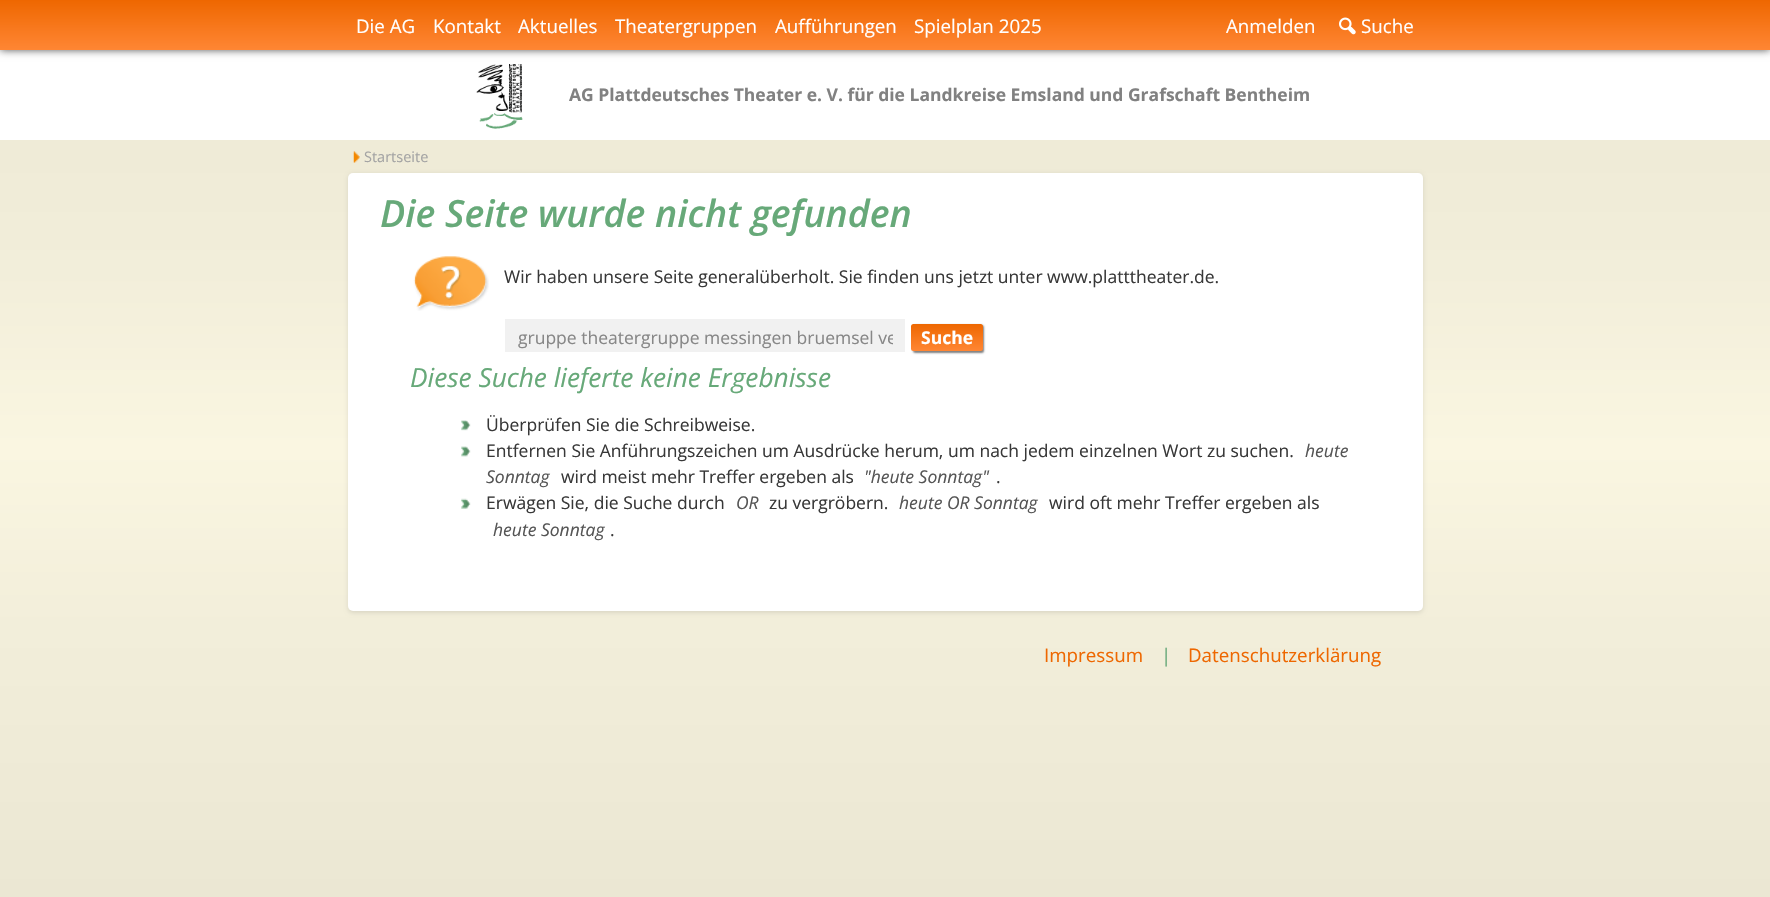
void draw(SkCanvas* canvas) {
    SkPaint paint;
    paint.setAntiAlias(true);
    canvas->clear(0xFFFFFFFF);
    {
        const SkColor colors[] = {0xFFEBE7D3, 0xFFF2EEDA, 0xFFFAF6E1, 0xFFF2EEDA, 0xFFEBE7D3};
        const float stops[] = {0, 0.3f, 0.5f, 0.7f, 1};
        const SkPoint ends[] = {{885, 0}, {885, 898}};
        paint.setShader(SkGradientShader::MakeLinear(ends, colors, stops, 5, SkTileMode::kClamp));
        paint.setAlpha(255);
    }
    canvas->drawRect(SkRect::MakeXYWH(0, 140, 1770, 757), paint);
    paint.setShader(nullptr);
    paint.setColor(0xFF555555);
    paint.setMaskFilter(SkMaskFilter::MakeBlur(kNormal_SkBlurStyle, 4));
    canvas->drawRect(SkRect::MakeXYWH(0, 0, 1770, 50), paint);
    paint.setMaskFilter(nullptr);
    {
        const SkColor colors[] = {0xFFEE6700, 0xFFFF8634};
        const float stops[] = {0, 1};
        const SkPoint ends[] = {{885, 0}, {885, 50}};
        paint.setShader(SkGradientShader::MakeLinear(ends, colors, stops, 2, SkTileMode::kClamp));
        paint.setAlpha(255);
    }
    canvas->drawRect(SkRect::MakeXYWH(0, 0, 1770, 50), paint);
    SkFont font1(fontMgr->matchFamilyStyle("Open Sans", SkFontStyle::Normal()), 18.75f);
    font1.setSubpixel(true);
    paint.setShader(nullptr);
    paint.setColor(0xFFFFFFFF);
    canvas->drawString("Die AG", 356, 33, font1, paint);
    canvas->drawString("Kontakt", 433, 33, font1, paint);
    canvas->drawString("Aktuelles", 518, 33, font1, paint);
    canvas->drawString("Theatergruppen", 615, 33, font1, paint);
    canvas->drawString("Aufführungen", 775, 33, font1, paint);
    canvas->drawString("Spielplan 2025", 914, 33, font1, paint);
    canvas->drawString("Anmelden", 1226, 33, font1, paint);
    canvas->drawImageRect(SkImages::DeferredFromEncodedData(SkData::MakeFromFileName("img1.png")), SkRect::MakeXYWH(1339, 17, 17, 18), SkSamplingOptions());
    canvas->drawString("Suche", 1361, 33, font1, paint);
    canvas->drawImageRect(SkImages::DeferredFromEncodedData(SkData::MakeFromFileName("img2.png")), SkRect::MakeXYWH(476, 64, 47, 65), SkSamplingOptions());
    SkFont font2(fontMgr->matchFamilyStyle("Open Sans", SkFontStyle::Bold()), 17.5f);
    font2.setSubpixel(true);
    paint.setColor(0xFF818181);
    canvas->drawString("AG Plattdeutsches Theater e. V. für die Landkreise Emsland und Grafschaft Bentheim", 569, 101, font2, paint);
    canvas->drawImageRect(SkImages::DeferredFromEncodedData(SkData::MakeFromFileName("img3.png")), SkRect::MakeXYWH(353, 151, 7, 12), SkSamplingOptions());
    SkFont font3(fontMgr->matchFamilyStyle("Open Sans", SkFontStyle::Normal()), 14.5f);
    font3.setSubpixel(true);
    paint.setColor(0xFFA4A4A4);
    canvas->drawString("Startseite", 364, 162, font3, paint);
    paint.setColor(0x1A000000);
    paint.setMaskFilter(SkMaskFilter::MakeBlur(kNormal_SkBlurStyle, 2));
    canvas->drawRoundRect(SkRect::MakeXYWH(348, 174, 1075, 439), 5, 5, paint);
    paint.setMaskFilter(nullptr);
    paint.setColor(0xFFFFFFFF);
    canvas->drawRoundRect(SkRect::MakeXYWH(348, 173, 1075, 438), 5, 5, paint);
    SkFont font4(fontMgr->matchFamilyStyle("Open Sans", SkFontStyle(600, SkFontStyle::kNormal_Width, SkFontStyle::kItalic_Slant)), 37.5f);
    font4.setSubpixel(true);
    paint.setColor(0xFF67A979);
    canvas->drawString("Die Seite wurde nicht gefunden", 380, 227, font4, paint);
    canvas->drawImageRect(SkImages::DeferredFromEncodedData(SkData::MakeFromFileName("img4.png")), SkRect::MakeXYWH(413, 256, 76, 55), SkSamplingOptions());
    SkFont font5(fontMgr->matchFamilyStyle("Open Sans", SkFontStyle::Normal()), 17.5f);
    font5.setSubpixel(true);
    paint.setColor(0xFF383838);
    canvas->drawString("Wir haben unsere Seite generalüberholt. Sie finden uns jetzt unter www.platttheater.de.", 504, 283, font5, paint);
    paint.setColor(0xFFF1F1F1);
    canvas->drawRect(SkRect::MakeXYWH(505, 319, 400, 33), paint);
    canvas->save();
    canvas->clipRect(SkRect::MakeXYWH(518, 325, 375, 24));
    paint.setColor(0xFF878787);
    canvas->drawString("gruppe theatergruppe messingen bruemsel ve", 518, 344, font5, paint);
    canvas->restore();
    paint.setColor(0x80000000);
    paint.setMaskFilter(SkMaskFilter::MakeBlur(kNormal_SkBlurStyle, 1));
    canvas->drawRoundRect(SkRect::MakeXYWH(913, 325, 71, 28), 2.5f, 2.5f, paint);
    paint.setMaskFilter(nullptr);
    {
        const SkColor colors[] = {0xFFEE6700, 0xFFFF8634};
        const float stops[] = {0, 1};
        const SkPoint ends[] = {{947, 324}, {947, 351}};
        paint.setShader(SkGradientShader::MakeLinear(ends, colors, stops, 2, SkTileMode::kClamp));
        paint.setAlpha(255);
    }
    canvas->drawRoundRect(SkRect::MakeXYWH(911, 324, 72, 27), 2.5f, 2.5f, paint);
    paint.setShader(nullptr);
    paint.setColor(0xFFFFFFFF);
    canvas->drawString("Suche", 921, 344, font2, paint);
    SkFont font6(fontMgr->matchFamilyStyle("Open Sans", SkFontStyle::Italic()), 26.25f);
    font6.setSubpixel(true);
    paint.setColor(0xFF67A979);
    canvas->drawString("Diese Suche lieferte keine Ergebnisse", 410, 387, font6, paint);
    canvas->drawImageRect(SkImages::DeferredFromEncodedData(SkData::MakeFromFileName("img5.png")), SkRect::MakeXYWH(461, 420, 10, 11), SkSamplingOptions());
    paint.setColor(0xFF383838);
    canvas->drawString("Überprüfen Sie die Schreibweise.", 486, 431, font5, paint);
    canvas->drawImageRect(SkImages::DeferredFromEncodedData(SkData::MakeFromFileName("img6.png")), SkRect::MakeXYWH(461, 446, 10, 11), SkSamplingOptions());
    canvas->drawString("Entfernen Sie Anführungszeichen um Ausdrücke herum, um nach jedem einzelnen Wort zu suchen.", 486, 457, font5, paint);
    SkFont font7(fontMgr->matchFamilyStyle("Open Sans", SkFontStyle::Italic()), 17.5f);
    font7.setSubpixel(true);
    paint.setColor(0xFF555555);
    canvas->drawString("heute", 1305, 457, font7, paint);
    canvas->drawString("Sonntag", 486, 483, font7, paint);
    paint.setColor(0xFF383838);
    canvas->drawString("wird meist mehr Treffer ergeben als", 561, 483, font5, paint);
    paint.setColor(0xFF555555);
    canvas->drawString("\"heute Sonntag\"", 864, 483, font7, paint);
    paint.setColor(0xFF383838);
    canvas->drawString(".", 996, 483, font5, paint);
    canvas->drawImageRect(SkImages::DeferredFromEncodedData(SkData::MakeFromFileName("img7.png")), SkRect::MakeXYWH(461, 498, 10, 11), SkSamplingOptions());
    canvas->drawString("Erwägen Sie, die Suche durch", 486, 509, font5, paint);
    paint.setColor(0xFF555555);
    canvas->drawString("OR", 736, 509, font7, paint);
    paint.setColor(0xFF383838);
    canvas->drawString("zu vergröbern.", 769, 509, font5, paint);
    paint.setColor(0xFF555555);
    canvas->drawString("heute OR Sonntag", 899, 509, font7, paint);
    paint.setColor(0xFF383838);
    canvas->drawString("wird oft mehr Treffer ergeben als", 1049, 509, font5, paint);
    paint.setColor(0xFF555555);
    canvas->drawString("heute Sonntag", 493, 536, font7, paint);
    paint.setColor(0xFF383838);
    canvas->drawString(".", 610, 536, font5, paint);
    paint.setColor(0xFFEE6700);
    canvas->drawString("Impressum", 1044, 662, font1, paint);
    paint.setColor(0xFF67A979);
    canvas->drawString("|", 1161, 662, font1, paint);
    paint.setColor(0xFFEE6700);
    canvas->drawString("Datenschutzerklärung", 1188, 662, font1, paint);
}
